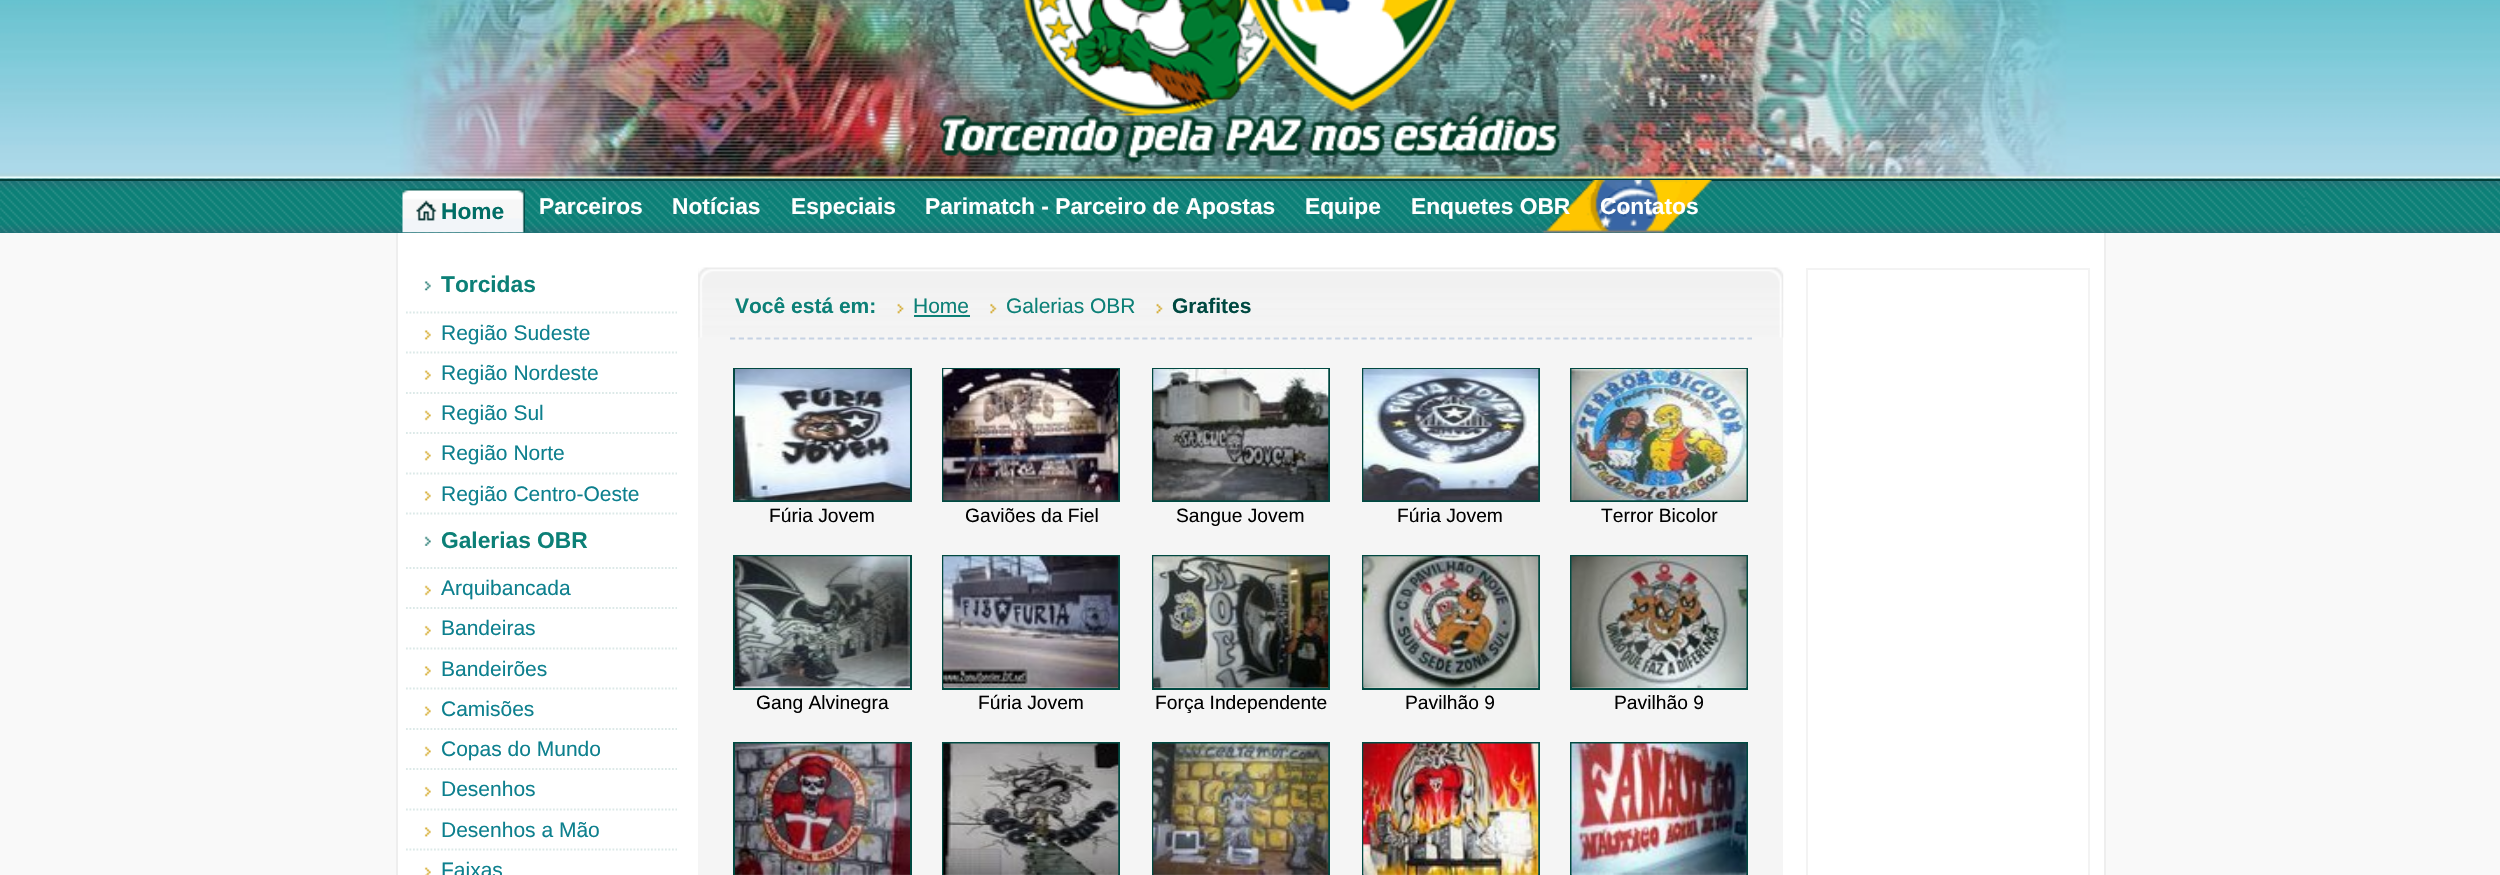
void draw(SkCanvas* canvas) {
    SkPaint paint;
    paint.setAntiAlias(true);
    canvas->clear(0xFFF9F9F9);
    paint.setColor(0xFF1E7175);
    canvas->drawRect(SkRect::MakeXYWH(0, 232, 2500, 1), paint);
    canvas->drawImageRect(SkImages::DeferredFromEncodedData(SkData::MakeFromFileName("img3.png")), SkRect::MakeXYWH(0, 178, 2500, 55), SkSamplingOptions());
    canvas->drawImageRect(SkImages::DeferredFromEncodedData(SkData::MakeFromFileName("img1.png")), SkRect::MakeXYWH(0, 0, 2500, 179), SkSamplingOptions());
    canvas->drawImageRect(SkImages::DeferredFromEncodedData(SkData::MakeFromFileName("img2.png")), SkRect::MakeXYWH(939, 0, 623, 163), SkSamplingOptions());
    paint.setColor(0xFF013D38);
    canvas->drawRect(SkRect::MakeXYWH(0, 179, 2500, 2), paint);
    canvas->drawImageRect(SkImages::DeferredFromEncodedData(SkData::MakeFromFileName("img4.png")), SkRect::MakeXYWH(1543, 180, 169, 53), SkSamplingOptions());
    canvas->drawImageRect(SkImages::DeferredFromEncodedData(SkData::MakeFromFileName("img5.png")), SkRect::MakeXYWH(402, 188, 123, 45), SkSamplingOptions());
    SkFont font1(fontMgr->matchFamilyStyle("Liberation Sans", SkFontStyle::Bold()), 22.75f);
    font1.setSubpixel(true);
    paint.setColor(0xFF006E66);
    canvas->drawString("Home", 441, 219, font1, paint);
    paint.setColor(0xFFFFFFFF);
    canvas->drawString("Parceiros", 539, 214, font1, paint);
    canvas->drawString("Notícias", 672, 214, font1, paint);
    canvas->drawString("Especiais", 791, 214, font1, paint);
    canvas->drawString("Parimatch - Parceiro de Apostas", 925, 214, font1, paint);
    canvas->drawString("Equipe", 1305, 214, font1, paint);
    canvas->drawString("Enquetes OBR", 1411, 214, font1, paint);
    canvas->drawString("Contatos", 1600, 214, font1, paint);
    canvas->drawRect(SkRect::MakeXYWH(398, 233, 1706, 642), paint);
    paint.setColor(0xFFEEEEEE);
    canvas->drawRect(SkRect::MakeXYWH(2104, 233, 2, 642), paint);
    canvas->drawRect(SkRect::MakeXYWH(396, 233, 2, 642), paint);
    canvas->drawImageRect(SkImages::DeferredFromEncodedData(SkData::MakeFromFileName("img6.png")), SkRect::MakeXYWH(424, 281, 7, 10), SkSamplingOptions());
    paint.setStyle(SkPaint::kStroke_Style);
    paint.setStrokeWidth(1.8f);
    paint.setColor(0xFFDCE9E8);
    paint.setPathEffect(SkDashPathEffect::Make({{1.75f, 1.75f}}, 0));
    canvas->drawPath(SkPathBuilder().moveTo(406, 312.5f).lineTo(677, 312.5f).detach(), paint);
    paint.setPathEffect(nullptr);
    paint.setStyle(SkPaint::kFill_Style);
    paint.setColor(0xFF0C8077);
    canvas->drawString("Torcidas", 441, 292, font1, paint);
    canvas->drawImageRect(SkImages::DeferredFromEncodedData(SkData::MakeFromFileName("img7.png")), SkRect::MakeXYWH(424, 330, 7, 10), SkSamplingOptions());
    paint.setStyle(SkPaint::kStroke_Style);
    paint.setColor(0xFFDCE9E8);
    paint.setPathEffect(SkDashPathEffect::Make({{1.75f, 1.75f}}, 0));
    canvas->drawPath(SkPathBuilder().moveTo(406, 352.5f).lineTo(677, 352.5f).detach(), paint);
    paint.setPathEffect(nullptr);
    SkFont font2(fontMgr->matchFamilyStyle("Liberation Sans", SkFontStyle::Normal()), 21);
    font2.setSubpixel(true);
    paint.setStyle(SkPaint::kFill_Style);
    paint.setColor(0xFF0D808E);
    canvas->drawString("Região Sudeste", 441, 340, font2, paint);
    canvas->drawImageRect(SkImages::DeferredFromEncodedData(SkData::MakeFromFileName("img8.png")), SkRect::MakeXYWH(424, 370, 7, 10), SkSamplingOptions());
    paint.setStyle(SkPaint::kStroke_Style);
    paint.setColor(0xFFDCE9E8);
    paint.setPathEffect(SkDashPathEffect::Make({{1.75f, 1.75f}}, 0));
    canvas->drawPath(SkPathBuilder().moveTo(406, 393).lineTo(677, 393).detach(), paint);
    paint.setPathEffect(nullptr);
    paint.setStyle(SkPaint::kFill_Style);
    paint.setColor(0xFF0D808E);
    canvas->drawString("Região Nordeste", 441, 380, font2, paint);
    canvas->drawImageRect(SkImages::DeferredFromEncodedData(SkData::MakeFromFileName("img9.png")), SkRect::MakeXYWH(424, 410, 7, 11), SkSamplingOptions());
    paint.setStyle(SkPaint::kStroke_Style);
    paint.setColor(0xFFDCE9E8);
    paint.setPathEffect(SkDashPathEffect::Make({{1.75f, 1.75f}}, 0));
    canvas->drawPath(SkPathBuilder().moveTo(406, 433).lineTo(677, 433).detach(), paint);
    paint.setPathEffect(nullptr);
    paint.setStyle(SkPaint::kFill_Style);
    paint.setColor(0xFF0D808E);
    canvas->drawString("Região Sul", 441, 420, font2, paint);
    canvas->drawImageRect(SkImages::DeferredFromEncodedData(SkData::MakeFromFileName("img10.png")), SkRect::MakeXYWH(424, 450, 7, 11), SkSamplingOptions());
    paint.setStyle(SkPaint::kStroke_Style);
    paint.setColor(0xFFDCE9E8);
    paint.setPathEffect(SkDashPathEffect::Make({{1.75f, 1.75f}}, 0));
    canvas->drawPath(SkPathBuilder().moveTo(406, 473.5f).lineTo(677, 473.5f).detach(), paint);
    paint.setPathEffect(nullptr);
    paint.setStyle(SkPaint::kFill_Style);
    paint.setColor(0xFF0D808E);
    canvas->drawString("Região Norte", 441, 460, font2, paint);
    canvas->drawImageRect(SkImages::DeferredFromEncodedData(SkData::MakeFromFileName("img7.png")), SkRect::MakeXYWH(424, 491, 7, 10), SkSamplingOptions());
    paint.setStyle(SkPaint::kStroke_Style);
    paint.setColor(0xFFDCE9E8);
    paint.setPathEffect(SkDashPathEffect::Make({{1.75f, 1.75f}}, 0));
    canvas->drawPath(SkPathBuilder().moveTo(406, 513.5f).lineTo(677, 513.5f).detach(), paint);
    paint.setPathEffect(nullptr);
    paint.setStyle(SkPaint::kFill_Style);
    paint.setColor(0xFF0D808E);
    canvas->drawString("Região Centro-Oeste", 441, 501, font2, paint);
    canvas->drawImageRect(SkImages::DeferredFromEncodedData(SkData::MakeFromFileName("img11.png")), SkRect::MakeXYWH(424, 536, 7, 10), SkSamplingOptions());
    paint.setStyle(SkPaint::kStroke_Style);
    paint.setColor(0xFFDCE9E8);
    paint.setPathEffect(SkDashPathEffect::Make({{1.75f, 1.75f}}, 0));
    canvas->drawPath(SkPathBuilder().moveTo(406, 568).lineTo(677, 568).detach(), paint);
    paint.setPathEffect(nullptr);
    paint.setStyle(SkPaint::kFill_Style);
    paint.setColor(0xFF0C8077);
    canvas->drawString("Galerias OBR", 441, 548, font1, paint);
    canvas->drawImageRect(SkImages::DeferredFromEncodedData(SkData::MakeFromFileName("img9.png")), SkRect::MakeXYWH(424, 585, 7, 11), SkSamplingOptions());
    paint.setStyle(SkPaint::kStroke_Style);
    paint.setColor(0xFFDCE9E8);
    paint.setPathEffect(SkDashPathEffect::Make({{1.75f, 1.75f}}, 0));
    canvas->drawPath(SkPathBuilder().moveTo(406, 608).lineTo(677, 608).detach(), paint);
    paint.setPathEffect(nullptr);
    paint.setStyle(SkPaint::kFill_Style);
    paint.setColor(0xFF0D808E);
    canvas->drawString("Arquibancada", 441, 595, font2, paint);
    canvas->drawImageRect(SkImages::DeferredFromEncodedData(SkData::MakeFromFileName("img10.png")), SkRect::MakeXYWH(424, 625, 7, 11), SkSamplingOptions());
    paint.setStyle(SkPaint::kStroke_Style);
    paint.setColor(0xFFDCE9E8);
    paint.setPathEffect(SkDashPathEffect::Make({{1.75f, 1.75f}}, 0));
    canvas->drawPath(SkPathBuilder().moveTo(406, 648.5f).lineTo(677, 648.5f).detach(), paint);
    paint.setPathEffect(nullptr);
    paint.setStyle(SkPaint::kFill_Style);
    paint.setColor(0xFF0D808E);
    canvas->drawString("Bandeiras", 441, 635, font2, paint);
    canvas->drawImageRect(SkImages::DeferredFromEncodedData(SkData::MakeFromFileName("img7.png")), SkRect::MakeXYWH(424, 666, 7, 10), SkSamplingOptions());
    paint.setStyle(SkPaint::kStroke_Style);
    paint.setColor(0xFFDCE9E8);
    paint.setPathEffect(SkDashPathEffect::Make({{1.75f, 1.75f}}, 0));
    canvas->drawPath(SkPathBuilder().moveTo(406, 688.5f).lineTo(677, 688.5f).detach(), paint);
    paint.setPathEffect(nullptr);
    paint.setStyle(SkPaint::kFill_Style);
    paint.setColor(0xFF0D808E);
    canvas->drawString("Bandeirões", 441, 676, font2, paint);
    canvas->drawImageRect(SkImages::DeferredFromEncodedData(SkData::MakeFromFileName("img8.png")), SkRect::MakeXYWH(424, 706, 7, 10), SkSamplingOptions());
    paint.setStyle(SkPaint::kStroke_Style);
    paint.setColor(0xFFDCE9E8);
    paint.setPathEffect(SkDashPathEffect::Make({{1.75f, 1.75f}}, 0));
    canvas->drawPath(SkPathBuilder().moveTo(406, 729).lineTo(677, 729).detach(), paint);
    paint.setPathEffect(nullptr);
    paint.setStyle(SkPaint::kFill_Style);
    paint.setColor(0xFF0D808E);
    canvas->drawString("Camisões", 441, 716, font2, paint);
    canvas->drawImageRect(SkImages::DeferredFromEncodedData(SkData::MakeFromFileName("img9.png")), SkRect::MakeXYWH(424, 746, 7, 11), SkSamplingOptions());
    paint.setStyle(SkPaint::kStroke_Style);
    paint.setColor(0xFFDCE9E8);
    paint.setPathEffect(SkDashPathEffect::Make({{1.75f, 1.75f}}, 0));
    canvas->drawPath(SkPathBuilder().moveTo(406, 769).lineTo(677, 769).detach(), paint);
    paint.setPathEffect(nullptr);
    paint.setStyle(SkPaint::kFill_Style);
    paint.setColor(0xFF0D808E);
    canvas->drawString("Copas do Mundo", 441, 756, font2, paint);
    canvas->drawImageRect(SkImages::DeferredFromEncodedData(SkData::MakeFromFileName("img10.png")), SkRect::MakeXYWH(424, 786, 7, 11), SkSamplingOptions());
    paint.setStyle(SkPaint::kStroke_Style);
    paint.setColor(0xFFDCE9E8);
    paint.setPathEffect(SkDashPathEffect::Make({{1.75f, 1.75f}}, 0));
    canvas->drawPath(SkPathBuilder().moveTo(406, 809.5f).lineTo(677, 809.5f).detach(), paint);
    paint.setPathEffect(nullptr);
    paint.setStyle(SkPaint::kFill_Style);
    paint.setColor(0xFF0D808E);
    canvas->drawString("Desenhos", 441, 796, font2, paint);
    canvas->drawImageRect(SkImages::DeferredFromEncodedData(SkData::MakeFromFileName("img7.png")), SkRect::MakeXYWH(424, 827, 7, 10), SkSamplingOptions());
    paint.setStyle(SkPaint::kStroke_Style);
    paint.setColor(0xFFDCE9E8);
    paint.setPathEffect(SkDashPathEffect::Make({{1.75f, 1.75f}}, 0));
    canvas->drawPath(SkPathBuilder().moveTo(406, 849.5f).lineTo(677, 849.5f).detach(), paint);
    paint.setPathEffect(nullptr);
    paint.setStyle(SkPaint::kFill_Style);
    paint.setColor(0xFF0D808E);
    canvas->drawString("Desenhos a Mão", 441, 837, font2, paint);
    canvas->drawImageRect(SkImages::DeferredFromEncodedData(SkData::MakeFromFileName("img12.png")), SkRect::MakeXYWH(424, 867, 7, 8), SkSamplingOptions());
    canvas->drawString("Faixas", 441, 877, font2, paint);
    paint.setColor(0xFFF5F5F5);
    canvas->drawRect(SkRect::MakeXYWH(698, 268, 1085, 607), paint);
    canvas->drawImageRect(SkImages::DeferredFromEncodedData(SkData::MakeFromFileName("img13.png")), SkRect::MakeXYWH(698, 267, 1086, 71), SkSamplingOptions());
    paint.setStyle(SkPaint::kStroke_Style);
    paint.setColor(0xFFC6D2E3);
    paint.setPathEffect(SkDashPathEffect::Make({{5.25f, 3.52f}}, 0));
    canvas->drawPath(SkPathBuilder().moveTo(730, 338.5f).lineTo(1752, 338.5f).detach(), paint);
    paint.setPathEffect(nullptr);
    SkFont font3(fontMgr->matchFamilyStyle("Liberation Sans", SkFontStyle::Bold()), 21);
    font3.setSubpixel(true);
    paint.setStyle(SkPaint::kFill_Style);
    paint.setColor(0xFF0C8077);
    canvas->drawString("Você está em:", 735, 313, font3, paint);
    canvas->drawImageRect(SkImages::DeferredFromEncodedData(SkData::MakeFromFileName("img14.png")), SkRect::MakeXYWH(897, 303, 7, 11), SkSamplingOptions());
    canvas->drawString("Home", 913, 313, font2, paint);
    canvas->drawRect(SkRect::MakeXYWH(914, 315, 56, 2), paint);
    canvas->drawImageRect(SkImages::DeferredFromEncodedData(SkData::MakeFromFileName("img15.png")), SkRect::MakeXYWH(990, 303, 7, 11), SkSamplingOptions());
    canvas->drawString("Galerias OBR", 1006, 313, font2, paint);
    canvas->drawImageRect(SkImages::DeferredFromEncodedData(SkData::MakeFromFileName("img16.png")), SkRect::MakeXYWH(1156, 303, 7, 11), SkSamplingOptions());
    paint.setColor(0xFF004941);
    canvas->drawString("Grafites", 1172, 313, font3, paint);
    paint.setStyle(SkPaint::kStroke_Style);
    paint.setStrokeWidth(2);
    canvas->drawRect(SkRect::MakeXYWH(734, 369, 177, 132), paint);
    canvas->drawImageRect(SkImages::DeferredFromEncodedData(SkData::MakeFromFileName("img17.png")), SkRect::MakeXYWH(735, 369, 175, 132), SkSamplingOptions());
    SkFont font4(fontMgr->matchFamilyStyle("Liberation Sans", SkFontStyle::Normal()), 19.25f);
    font4.setSubpixel(true);
    paint.setStyle(SkPaint::kFill_Style);
    paint.setColor(0xFF000000);
    canvas->drawString("Fúria Jovem", 769, 522, font4, paint);
    paint.setStyle(SkPaint::kStroke_Style);
    paint.setColor(0xFF004941);
    canvas->drawRect(SkRect::MakeXYWH(943, 369, 176, 132), paint);
    canvas->drawImageRect(SkImages::DeferredFromEncodedData(SkData::MakeFromFileName("img18.png")), SkRect::MakeXYWH(943, 369, 176, 132), SkSamplingOptions());
    paint.setStyle(SkPaint::kFill_Style);
    paint.setColor(0xFF000000);
    canvas->drawString("Gaviões da Fiel", 965, 522, font4, paint);
    paint.setStyle(SkPaint::kStroke_Style);
    paint.setColor(0xFF004941);
    canvas->drawRect(SkRect::MakeXYWH(1153, 369, 176, 132), paint);
    canvas->drawImageRect(SkImages::DeferredFromEncodedData(SkData::MakeFromFileName("img19.png")), SkRect::MakeXYWH(1153, 369, 176, 132), SkSamplingOptions());
    paint.setStyle(SkPaint::kFill_Style);
    paint.setColor(0xFF000000);
    canvas->drawString("Sangue Jovem", 1176, 522, font4, paint);
    paint.setStyle(SkPaint::kStroke_Style);
    paint.setColor(0xFF004941);
    canvas->drawRect(SkRect::MakeXYWH(1363, 369, 176, 132), paint);
    canvas->drawImageRect(SkImages::DeferredFromEncodedData(SkData::MakeFromFileName("img20.png")), SkRect::MakeXYWH(1363, 369, 176, 132), SkSamplingOptions());
    paint.setStyle(SkPaint::kFill_Style);
    paint.setColor(0xFF000000);
    canvas->drawString("Fúria Jovem", 1397, 522, font4, paint);
    paint.setStyle(SkPaint::kStroke_Style);
    paint.setColor(0xFF004941);
    canvas->drawRect(SkRect::MakeXYWH(1571, 369, 176, 132), paint);
    canvas->drawImageRect(SkImages::DeferredFromEncodedData(SkData::MakeFromFileName("img21.png")), SkRect::MakeXYWH(1571, 369, 176, 132), SkSamplingOptions());
    paint.setStyle(SkPaint::kFill_Style);
    paint.setColor(0xFF000000);
    canvas->drawString("Terror Bicolor", 1601, 522, font4, paint);
    canvas->drawImageRect(SkImages::DeferredFromEncodedData(SkData::MakeFromFileName("img22.png")), SkRect::MakeXYWH(735, 687, 175, 1), SkSamplingOptions());
    paint.setStyle(SkPaint::kStroke_Style);
    paint.setColor(0xFF004941);
    canvas->drawRect(SkRect::MakeXYWH(734, 556, 177, 133), paint);
    canvas->drawImageRect(SkImages::DeferredFromEncodedData(SkData::MakeFromFileName("img23.png")), SkRect::MakeXYWH(735, 556, 175, 132), SkSamplingOptions());
    paint.setStyle(SkPaint::kFill_Style);
    paint.setColor(0xFF000000);
    canvas->drawString("Gang Alvinegra", 756, 709, font4, paint);
    canvas->drawImageRect(SkImages::DeferredFromEncodedData(SkData::MakeFromFileName("img24.png")), SkRect::MakeXYWH(944, 687, 174, 1), SkSamplingOptions());
    paint.setStyle(SkPaint::kStroke_Style);
    paint.setColor(0xFF004941);
    canvas->drawRect(SkRect::MakeXYWH(943, 556, 176, 133), paint);
    canvas->drawImageRect(SkImages::DeferredFromEncodedData(SkData::MakeFromFileName("img25.png")), SkRect::MakeXYWH(943, 556, 176, 132), SkSamplingOptions());
    paint.setStyle(SkPaint::kFill_Style);
    paint.setColor(0xFF000000);
    canvas->drawString("Fúria Jovem", 978, 709, font4, paint);
    canvas->drawImageRect(SkImages::DeferredFromEncodedData(SkData::MakeFromFileName("img26.png")), SkRect::MakeXYWH(1154, 687, 174, 1), SkSamplingOptions());
    paint.setStyle(SkPaint::kStroke_Style);
    paint.setColor(0xFF004941);
    canvas->drawRect(SkRect::MakeXYWH(1153, 556, 176, 133), paint);
    canvas->drawImageRect(SkImages::DeferredFromEncodedData(SkData::MakeFromFileName("img27.png")), SkRect::MakeXYWH(1153, 556, 176, 132), SkSamplingOptions());
    paint.setStyle(SkPaint::kFill_Style);
    paint.setColor(0xFF000000);
    canvas->drawString("Força Independente", 1155, 709, font4, paint);
    canvas->drawImageRect(SkImages::DeferredFromEncodedData(SkData::MakeFromFileName("img28.png")), SkRect::MakeXYWH(1364, 687, 174, 1), SkSamplingOptions());
    paint.setStyle(SkPaint::kStroke_Style);
    paint.setColor(0xFF004941);
    canvas->drawRect(SkRect::MakeXYWH(1363, 556, 176, 133), paint);
    canvas->drawImageRect(SkImages::DeferredFromEncodedData(SkData::MakeFromFileName("img29.png")), SkRect::MakeXYWH(1363, 556, 176, 132), SkSamplingOptions());
    paint.setStyle(SkPaint::kFill_Style);
    paint.setColor(0xFF000000);
    canvas->drawString("Pavilhão 9", 1405, 709, font4, paint);
    canvas->drawImageRect(SkImages::DeferredFromEncodedData(SkData::MakeFromFileName("img30.png")), SkRect::MakeXYWH(1572, 687, 174, 1), SkSamplingOptions());
    paint.setStyle(SkPaint::kStroke_Style);
    paint.setColor(0xFF004941);
    canvas->drawRect(SkRect::MakeXYWH(1571, 556, 176, 133), paint);
    canvas->drawImageRect(SkImages::DeferredFromEncodedData(SkData::MakeFromFileName("img31.png")), SkRect::MakeXYWH(1571, 556, 176, 132), SkSamplingOptions());
    paint.setStyle(SkPaint::kFill_Style);
    paint.setColor(0xFF000000);
    canvas->drawString("Pavilhão 9", 1614, 709, font4, paint);
    canvas->drawImageRect(SkImages::DeferredFromEncodedData(SkData::MakeFromFileName("img32.png")), SkRect::MakeXYWH(735, 874, 175, 1), SkSamplingOptions());
    paint.setStyle(SkPaint::kStroke_Style);
    paint.setColor(0xFF004941);
    canvas->drawRect(SkRect::MakeXYWH(734, 743, 177, 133), paint);
    canvas->drawImageRect(SkImages::DeferredFromEncodedData(SkData::MakeFromFileName("img33.png")), SkRect::MakeXYWH(735, 743, 175, 132), SkSamplingOptions());
    canvas->drawImageRect(SkImages::DeferredFromEncodedData(SkData::MakeFromFileName("img34.png")), SkRect::MakeXYWH(944, 874, 174, 1), SkSamplingOptions());
    canvas->drawRect(SkRect::MakeXYWH(943, 743, 176, 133), paint);
    canvas->drawImageRect(SkImages::DeferredFromEncodedData(SkData::MakeFromFileName("img35.png")), SkRect::MakeXYWH(943, 743, 176, 132), SkSamplingOptions());
    canvas->drawImageRect(SkImages::DeferredFromEncodedData(SkData::MakeFromFileName("img36.png")), SkRect::MakeXYWH(1154, 874, 174, 1), SkSamplingOptions());
    canvas->drawRect(SkRect::MakeXYWH(1153, 743, 176, 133), paint);
    canvas->drawImageRect(SkImages::DeferredFromEncodedData(SkData::MakeFromFileName("img37.png")), SkRect::MakeXYWH(1153, 743, 176, 132), SkSamplingOptions());
    canvas->drawImageRect(SkImages::DeferredFromEncodedData(SkData::MakeFromFileName("img38.png")), SkRect::MakeXYWH(1364, 874, 174, 1), SkSamplingOptions());
    canvas->drawRect(SkRect::MakeXYWH(1363, 743, 176, 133), paint);
    canvas->drawImageRect(SkImages::DeferredFromEncodedData(SkData::MakeFromFileName("img39.png")), SkRect::MakeXYWH(1363, 743, 176, 132), SkSamplingOptions());
    canvas->drawImageRect(SkImages::DeferredFromEncodedData(SkData::MakeFromFileName("img40.png")), SkRect::MakeXYWH(1572, 874, 174, 1), SkSamplingOptions());
    canvas->drawRect(SkRect::MakeXYWH(1571, 743, 176, 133), paint);
    canvas->drawImageRect(SkImages::DeferredFromEncodedData(SkData::MakeFromFileName("img41.png")), SkRect::MakeXYWH(1571, 743, 176, 132), SkSamplingOptions());
    paint.setColor(0xFFF3F3F3);
    canvas->drawRect(SkRect::MakeXYWH(1807, 269, 282, 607), paint);
}
